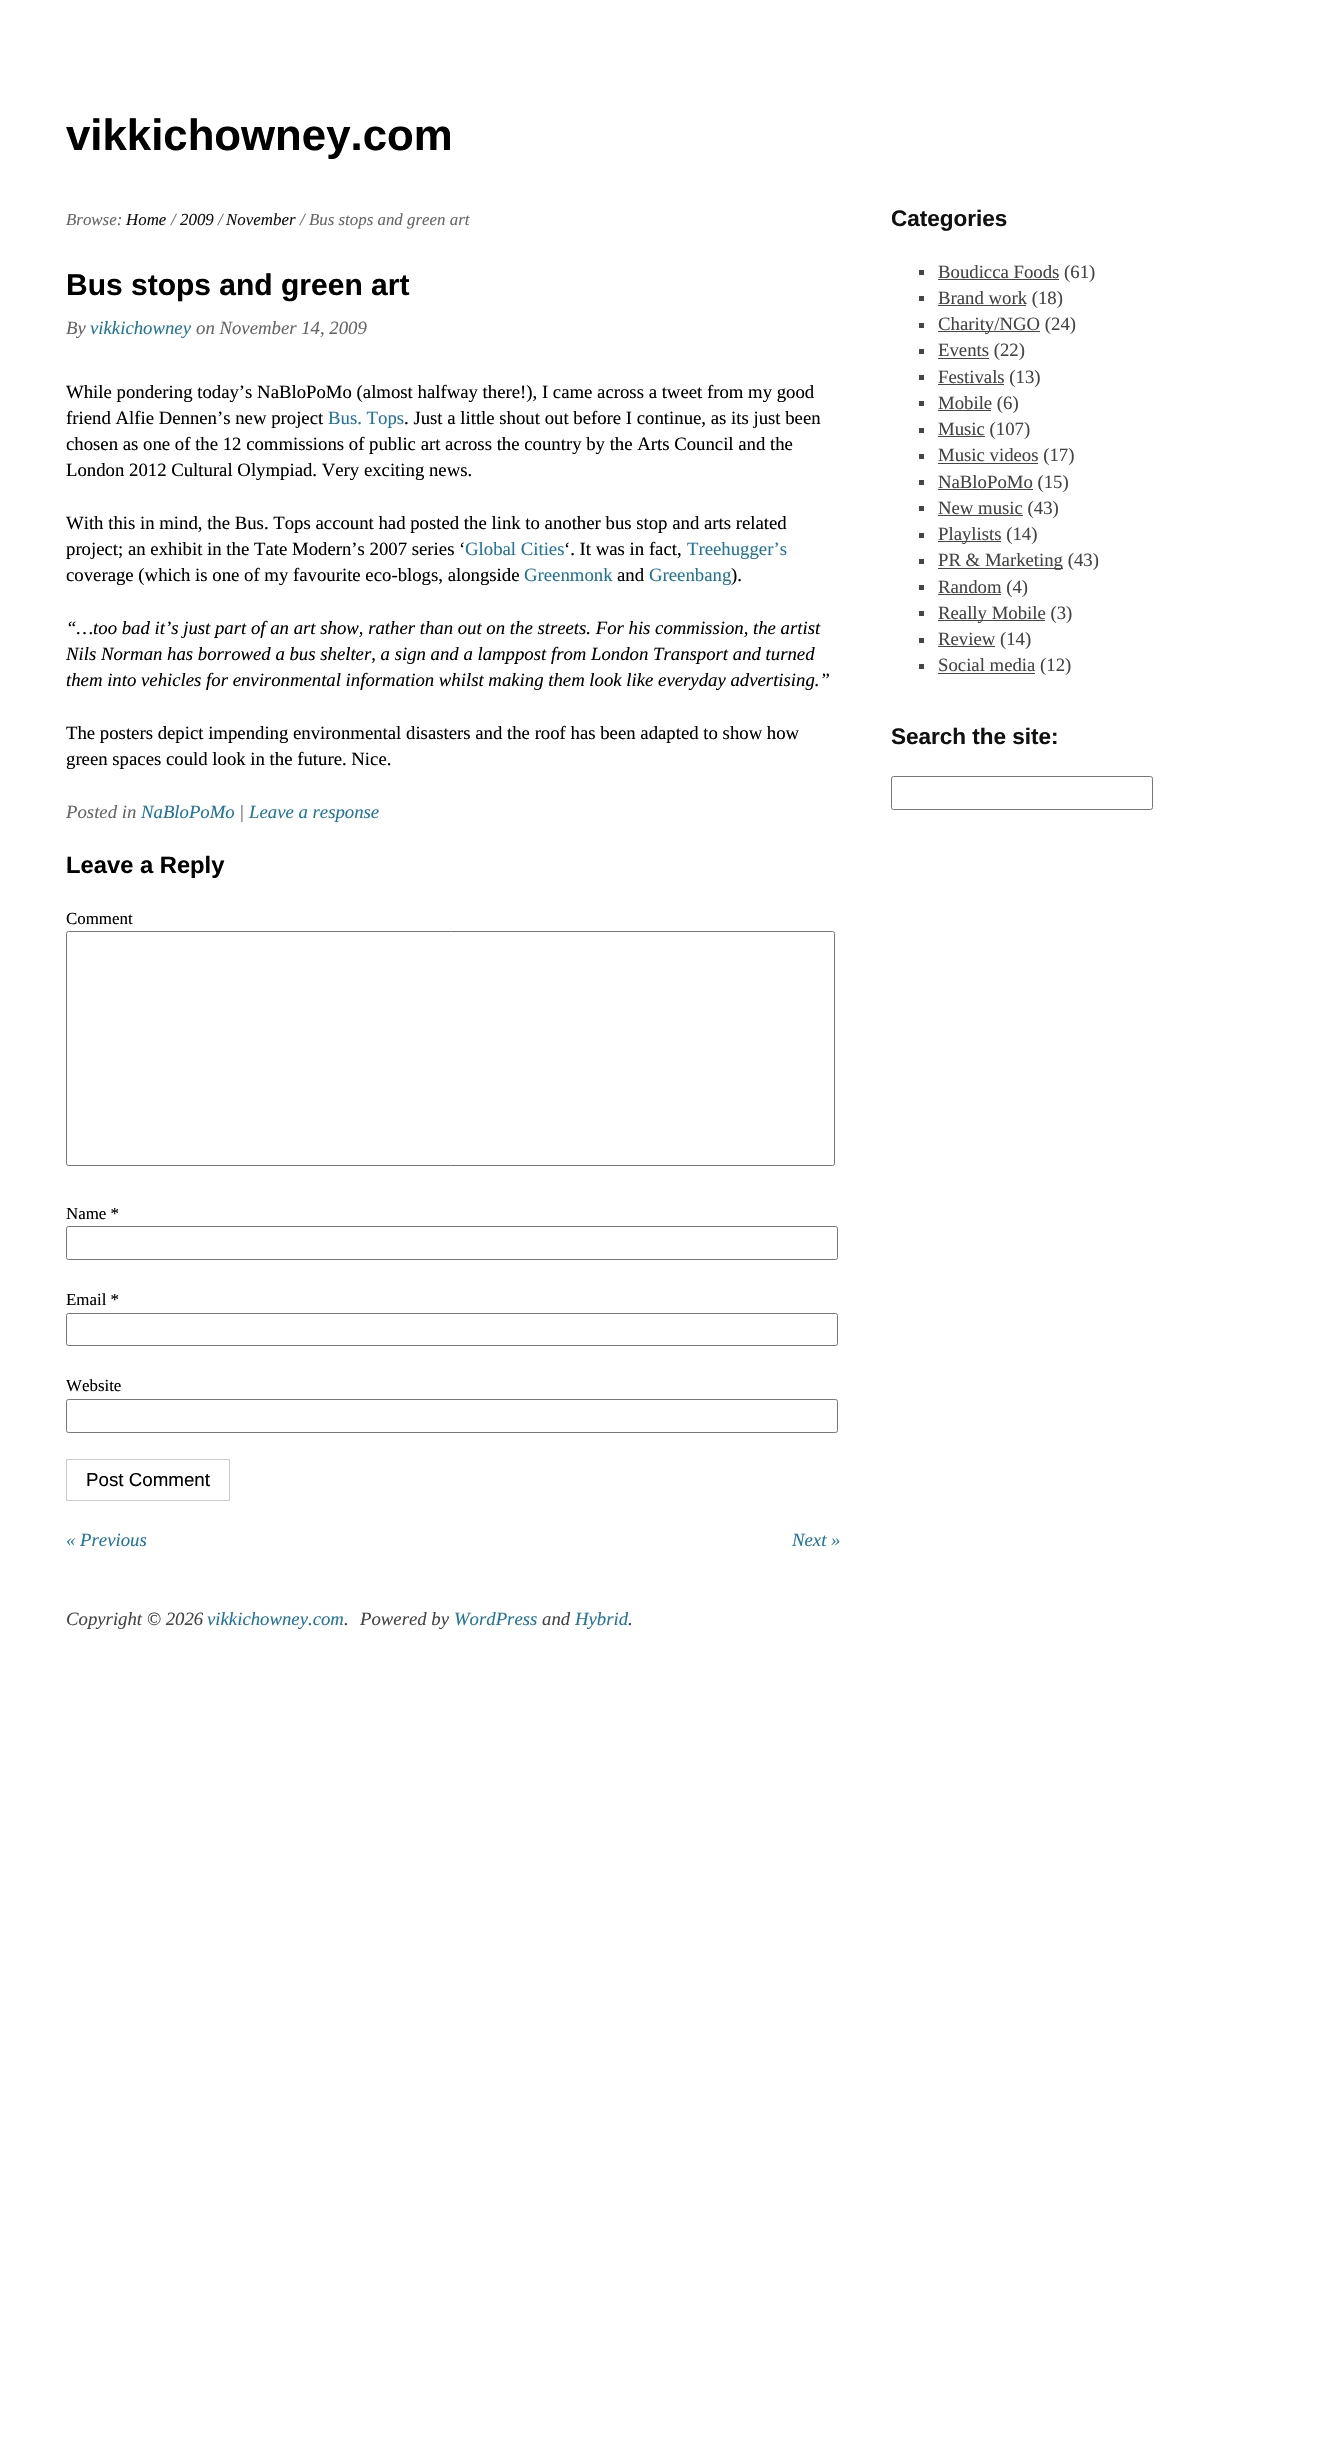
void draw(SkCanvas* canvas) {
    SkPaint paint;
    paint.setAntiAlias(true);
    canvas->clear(0xFFFFFFFF);
    SkFont font1(fontMgr->matchFamilyStyle("Liberation Sans", SkFontStyle::Bold()), 43.75f);
    font1.setSubpixel(true);
    paint.setColor(0xFF000000);
    canvas->drawString("vikkichowney.com", 66, 150, font1, paint);
    SkFont font2(fontMgr->matchFamilyStyle("Liberation Serif", SkFontStyle::Italic()), 16.9f);
    font2.setSubpixel(true);
    paint.setColor(0xFF666666);
    canvas->drawString("Browse:", 66, 225, font2, paint);
    paint.setColor(0xFF111111);
    canvas->drawString("Home", 126, 225, font2, paint);
    paint.setColor(0xFF666666);
    canvas->drawString("/", 171, 225, font2, paint);
    paint.setColor(0xFF111111);
    canvas->drawString("2009", 180, 225, font2, paint);
    paint.setColor(0xFF666666);
    canvas->drawString("/", 218, 225, font2, paint);
    paint.setColor(0xFF111111);
    canvas->drawString("November", 226, 225, font2, paint);
    paint.setColor(0xFF666666);
    canvas->drawString("/ Bus stops and green art", 300, 225, font2, paint);
    SkFont font3(fontMgr->matchFamilyStyle("Liberation Sans", SkFontStyle::Bold()), 30);
    font3.setSubpixel(true);
    paint.setColor(0xFF000000);
    canvas->drawString("Bus stops and green art", 66, 295, font3, paint);
    SkFont font4(fontMgr->matchFamilyStyle("Liberation Serif", SkFontStyle::Italic()), 18.75f);
    font4.setSubpixel(true);
    paint.setColor(0xFF666666);
    canvas->drawString("By", 66, 334, font4, paint);
    paint.setColor(0xFF21759B);
    canvas->drawString("vikkichowney", 90, 334, font4, paint);
    paint.setColor(0xFF666666);
    canvas->drawString("on November 14, 2009", 196, 334, font4, paint);
    SkFont font5(fontMgr->matchFamilyStyle("Liberation Serif", SkFontStyle::Normal()), 18.75f);
    font5.setSubpixel(true);
    paint.setColor(0xFF000000);
    canvas->drawString("While pondering today’s NaBloPoMo (almost halfway there!), I came across a tweet from my good", 66, 398, font5, paint);
    canvas->drawString("friend Alfie Dennen’s new project", 66, 424, font5, paint);
    paint.setColor(0xFF21759B);
    canvas->drawString("Bus. Tops", 328, 424, font5, paint);
    paint.setColor(0xFF000000);
    canvas->drawString(". Just a little shout out before I continue, as its just been", 404, 424, font5, paint);
    canvas->drawString("chosen as one of the 12 commissions of public art across the country by the Arts Council and the", 66, 450, font5, paint);
    canvas->drawString("London 2012 Cultural Olympiad. Very exciting news.", 66, 476, font5, paint);
    canvas->drawString("With this in mind, the Bus. Tops account had posted the link to another bus stop and arts related", 66, 529, font5, paint);
    canvas->drawString("project; an exhibit in the Tate Modern’s 2007 series ‘", 66, 555, font5, paint);
    paint.setColor(0xFF21759B);
    canvas->drawString("Global Cities", 465, 555, font5, paint);
    paint.setColor(0xFF000000);
    canvas->drawString("‘. It was in fact,", 564, 555, font5, paint);
    paint.setColor(0xFF21759B);
    canvas->drawString("Treehugger’s", 687, 555, font5, paint);
    paint.setColor(0xFF000000);
    canvas->drawString("coverage (which is one of my favourite eco-blogs, alongside", 66, 581, font5, paint);
    paint.setColor(0xFF21759B);
    canvas->drawString("Greenmonk", 524, 581, font5, paint);
    paint.setColor(0xFF000000);
    canvas->drawString("and", 617, 581, font5, paint);
    paint.setColor(0xFF21759B);
    canvas->drawString("Greenbang", 649, 581, font5, paint);
    paint.setColor(0xFF000000);
    canvas->drawString(").", 731, 581, font5, paint);
    canvas->drawString("“…too bad it’s just part of an art show, rather than out on the streets. For his commission, the artist", 66, 634, font4, paint);
    canvas->drawString("Nils Norman has borrowed a bus shelter, a sign and a lamppost from London Transport and turned", 66, 660, font4, paint);
    canvas->drawString("them into vehicles for environmental information whilst making them look like everyday advertising.”", 66, 686, font4, paint);
    canvas->drawString("The posters depict impending environmental disasters and the roof has been adapted to show how", 66, 739, font5, paint);
    canvas->drawString("green spaces could look in the future. Nice.", 66, 765, font5, paint);
    paint.setColor(0xFF666666);
    canvas->drawString("Posted in", 66, 818, font4, paint);
    paint.setColor(0xFF21759B);
    canvas->drawString("NaBloPoMo", 141, 818, font4, paint);
    paint.setColor(0xFF666666);
    canvas->drawString("|", 239, 818, font4, paint);
    paint.setColor(0xFF21759B);
    canvas->drawString("Leave a response", 249, 818, font4, paint);
    SkFont font6(fontMgr->matchFamilyStyle("Liberation Sans", SkFontStyle::Bold()), 23.75f);
    font6.setSubpixel(true);
    paint.setColor(0xFF000000);
    canvas->drawString("Leave a Reply", 66, 873, font6, paint);
    SkFont font7(fontMgr->matchFamilyStyle("Liberation Serif", SkFontStyle::Normal()), 16.9f);
    font7.setSubpixel(true);
    canvas->drawString("Comment", 66, 924, font7, paint);
    paint.setStyle(SkPaint::kStroke_Style);
    paint.setStrokeWidth(1);
    paint.setColor(0xFF767676);
    canvas->drawRoundRect(SkRect::MakeXYWH(66.5f, 931.5f, 768, 234), 2, 2, paint);
    paint.setStyle(SkPaint::kFill_Style);
    paint.setColor(0xFF000000);
    canvas->drawString("Name *", 66, 1219, font7, paint);
    paint.setStyle(SkPaint::kStroke_Style);
    paint.setColor(0xFF767676);
    canvas->drawRoundRect(SkRect::MakeXYWH(66.5f, 1226.5f, 771, 33), 2, 2, paint);
    paint.setStyle(SkPaint::kFill_Style);
    paint.setColor(0xFF000000);
    canvas->drawString("Email *", 66, 1305, font7, paint);
    paint.setStyle(SkPaint::kStroke_Style);
    paint.setColor(0xFF767676);
    canvas->drawRoundRect(SkRect::MakeXYWH(66.5f, 1313.5f, 771, 32), 2, 2, paint);
    paint.setStyle(SkPaint::kFill_Style);
    paint.setColor(0xFF000000);
    canvas->drawString("Website", 66, 1391, font7, paint);
    paint.setStyle(SkPaint::kStroke_Style);
    paint.setColor(0xFF767676);
    canvas->drawRoundRect(SkRect::MakeXYWH(66.5f, 1399.5f, 771, 33), 2, 2, paint);
    paint.setColor(0xFFCCCCCC);
    canvas->drawRect(SkRect::MakeXYWH(66.5f, 1459.5f, 163, 41), paint);
    SkFont font8(fontMgr->matchFamilyStyle("Liberation Sans", SkFontStyle::Normal()), 18.75f);
    font8.setSubpixel(true);
    paint.setStyle(SkPaint::kFill_Style);
    paint.setColor(0xFF000000);
    canvas->drawString("Post Comment", 86, 1486, font8, paint);
    paint.setColor(0xFF21759B);
    canvas->drawString("« Previous", 66, 1546, font4, paint);
    canvas->drawString("Next »", 792, 1546, font4, paint);
    SkFont font9(fontMgr->matchFamilyStyle("Liberation Sans", SkFontStyle::Bold()), 22.5f);
    font9.setSubpixel(true);
    paint.setColor(0xFF111111);
    canvas->drawString("Categories", 891, 226, font9, paint);
    paint.setColor(0xFF464646);
    canvas->drawRect(SkRect::MakeXYWH(919, 270, 5, 5), paint);
    canvas->drawRect(SkRect::MakeXYWH(938, 279, 121, 1), paint);
    paint.setColor(0xFF444444);
    canvas->drawString("Boudicca Foods (61)", 938, 278, font5, paint);
    paint.setColor(0xFF464646);
    canvas->drawRect(SkRect::MakeXYWH(919, 296, 5, 5), paint);
    canvas->drawRect(SkRect::MakeXYWH(938, 305, 88, 1), paint);
    paint.setColor(0xFF444444);
    canvas->drawString("Brand work (18)", 938, 304, font5, paint);
    paint.setColor(0xFF464646);
    canvas->drawRect(SkRect::MakeXYWH(919, 323, 5, 5), paint);
    canvas->drawRect(SkRect::MakeXYWH(938, 331, 102, 1), paint);
    paint.setColor(0xFF444444);
    canvas->drawString("Charity/NGO (24)", 938, 330, font5, paint);
    paint.setColor(0xFF464646);
    canvas->drawRect(SkRect::MakeXYWH(919, 349, 5, 5), paint);
    canvas->drawRect(SkRect::MakeXYWH(938, 358, 51, 1), paint);
    paint.setColor(0xFF444444);
    canvas->drawString("Events (22)", 938, 356, font5, paint);
    paint.setColor(0xFF464646);
    canvas->drawRect(SkRect::MakeXYWH(919, 375, 5, 5), paint);
    canvas->drawRect(SkRect::MakeXYWH(938, 384, 66, 1), paint);
    paint.setColor(0xFF444444);
    canvas->drawString("Festivals (13)", 938, 383, font5, paint);
    paint.setColor(0xFF464646);
    canvas->drawRect(SkRect::MakeXYWH(919, 401, 5, 5), paint);
    canvas->drawRect(SkRect::MakeXYWH(938, 410, 53, 1), paint);
    paint.setColor(0xFF444444);
    canvas->drawString("Mobile (6)", 938, 409, font5, paint);
    paint.setColor(0xFF464646);
    canvas->drawRect(SkRect::MakeXYWH(919, 428, 5, 5), paint);
    canvas->drawRect(SkRect::MakeXYWH(938, 436, 47, 1), paint);
    paint.setColor(0xFF444444);
    canvas->drawString("Music (107)", 938, 435, font5, paint);
    paint.setColor(0xFF464646);
    canvas->drawRect(SkRect::MakeXYWH(919, 454, 5, 5), paint);
    canvas->drawRect(SkRect::MakeXYWH(938, 463, 100, 1), paint);
    paint.setColor(0xFF444444);
    canvas->drawString("Music videos (17)", 938, 461, font5, paint);
    paint.setColor(0xFF464646);
    canvas->drawRect(SkRect::MakeXYWH(919, 480, 5, 5), paint);
    canvas->drawRect(SkRect::MakeXYWH(938, 489, 95, 1), paint);
    paint.setColor(0xFF444444);
    canvas->drawString("NaBloPoMo (15)", 938, 488, font5, paint);
    paint.setColor(0xFF464646);
    canvas->drawRect(SkRect::MakeXYWH(919, 506, 5, 5), paint);
    canvas->drawRect(SkRect::MakeXYWH(938, 515, 85, 1), paint);
    paint.setColor(0xFF444444);
    canvas->drawString("New music (43)", 938, 514, font5, paint);
    paint.setColor(0xFF464646);
    canvas->drawRect(SkRect::MakeXYWH(919, 533, 5, 5), paint);
    canvas->drawRect(SkRect::MakeXYWH(938, 541, 63, 1), paint);
    paint.setColor(0xFF444444);
    canvas->drawString("Playlists (14)", 938, 540, font5, paint);
    paint.setColor(0xFF464646);
    canvas->drawRect(SkRect::MakeXYWH(919, 559, 5, 5), paint);
    canvas->drawRect(SkRect::MakeXYWH(938, 568, 125, 1), paint);
    paint.setColor(0xFF444444);
    canvas->drawString("PR & Marketing (43)", 938, 566, font5, paint);
    paint.setColor(0xFF464646);
    canvas->drawRect(SkRect::MakeXYWH(919, 585, 5, 5), paint);
    canvas->drawRect(SkRect::MakeXYWH(938, 594, 63, 1), paint);
    paint.setColor(0xFF444444);
    canvas->drawString("Random (4)", 938, 593, font5, paint);
    paint.setColor(0xFF464646);
    canvas->drawRect(SkRect::MakeXYWH(919, 611, 5, 5), paint);
    canvas->drawRect(SkRect::MakeXYWH(938, 620, 107, 1), paint);
    paint.setColor(0xFF444444);
    canvas->drawString("Really Mobile (3)", 938, 619, font5, paint);
    paint.setColor(0xFF464646);
    canvas->drawRect(SkRect::MakeXYWH(919, 638, 5, 5), paint);
    canvas->drawRect(SkRect::MakeXYWH(938, 646, 57, 1), paint);
    paint.setColor(0xFF444444);
    canvas->drawString("Review (14)", 938, 645, font5, paint);
    paint.setColor(0xFF464646);
    canvas->drawRect(SkRect::MakeXYWH(919, 664, 5, 5), paint);
    canvas->drawRect(SkRect::MakeXYWH(938, 673, 97, 1), paint);
    paint.setColor(0xFF444444);
    canvas->drawString("Social media (12)", 938, 671, font5, paint);
    paint.setColor(0xFF111111);
    canvas->drawString("Search the site:", 891, 744, font9, paint);
    paint.setStyle(SkPaint::kStroke_Style);
    paint.setColor(0xFF767676);
    canvas->drawRoundRect(SkRect::MakeXYWH(891.5f, 776.5f, 261, 33), 2, 2, paint);
    paint.setStyle(SkPaint::kFill_Style);
    paint.setColor(0xFF444444);
    canvas->drawString("Copyright © 2026", 66, 1625, font4, paint);
    paint.setColor(0xFF21759B);
    canvas->drawString("vikkichowney.com", 207, 1625, font4, paint);
    paint.setColor(0xFF444444);
    canvas->drawString(".", 344, 1625, font4, paint);
    canvas->drawString("Powered by", 360, 1625, font4, paint);
    paint.setColor(0xFF21759B);
    canvas->drawString("WordPress", 454, 1625, font4, paint);
    paint.setColor(0xFF444444);
    canvas->drawString("and", 542, 1625, font4, paint);
    paint.setColor(0xFF21759B);
    canvas->drawString("Hybrid", 575, 1625, font4, paint);
    paint.setColor(0xFF444444);
    canvas->drawString(".", 628, 1625, font4, paint);
}
